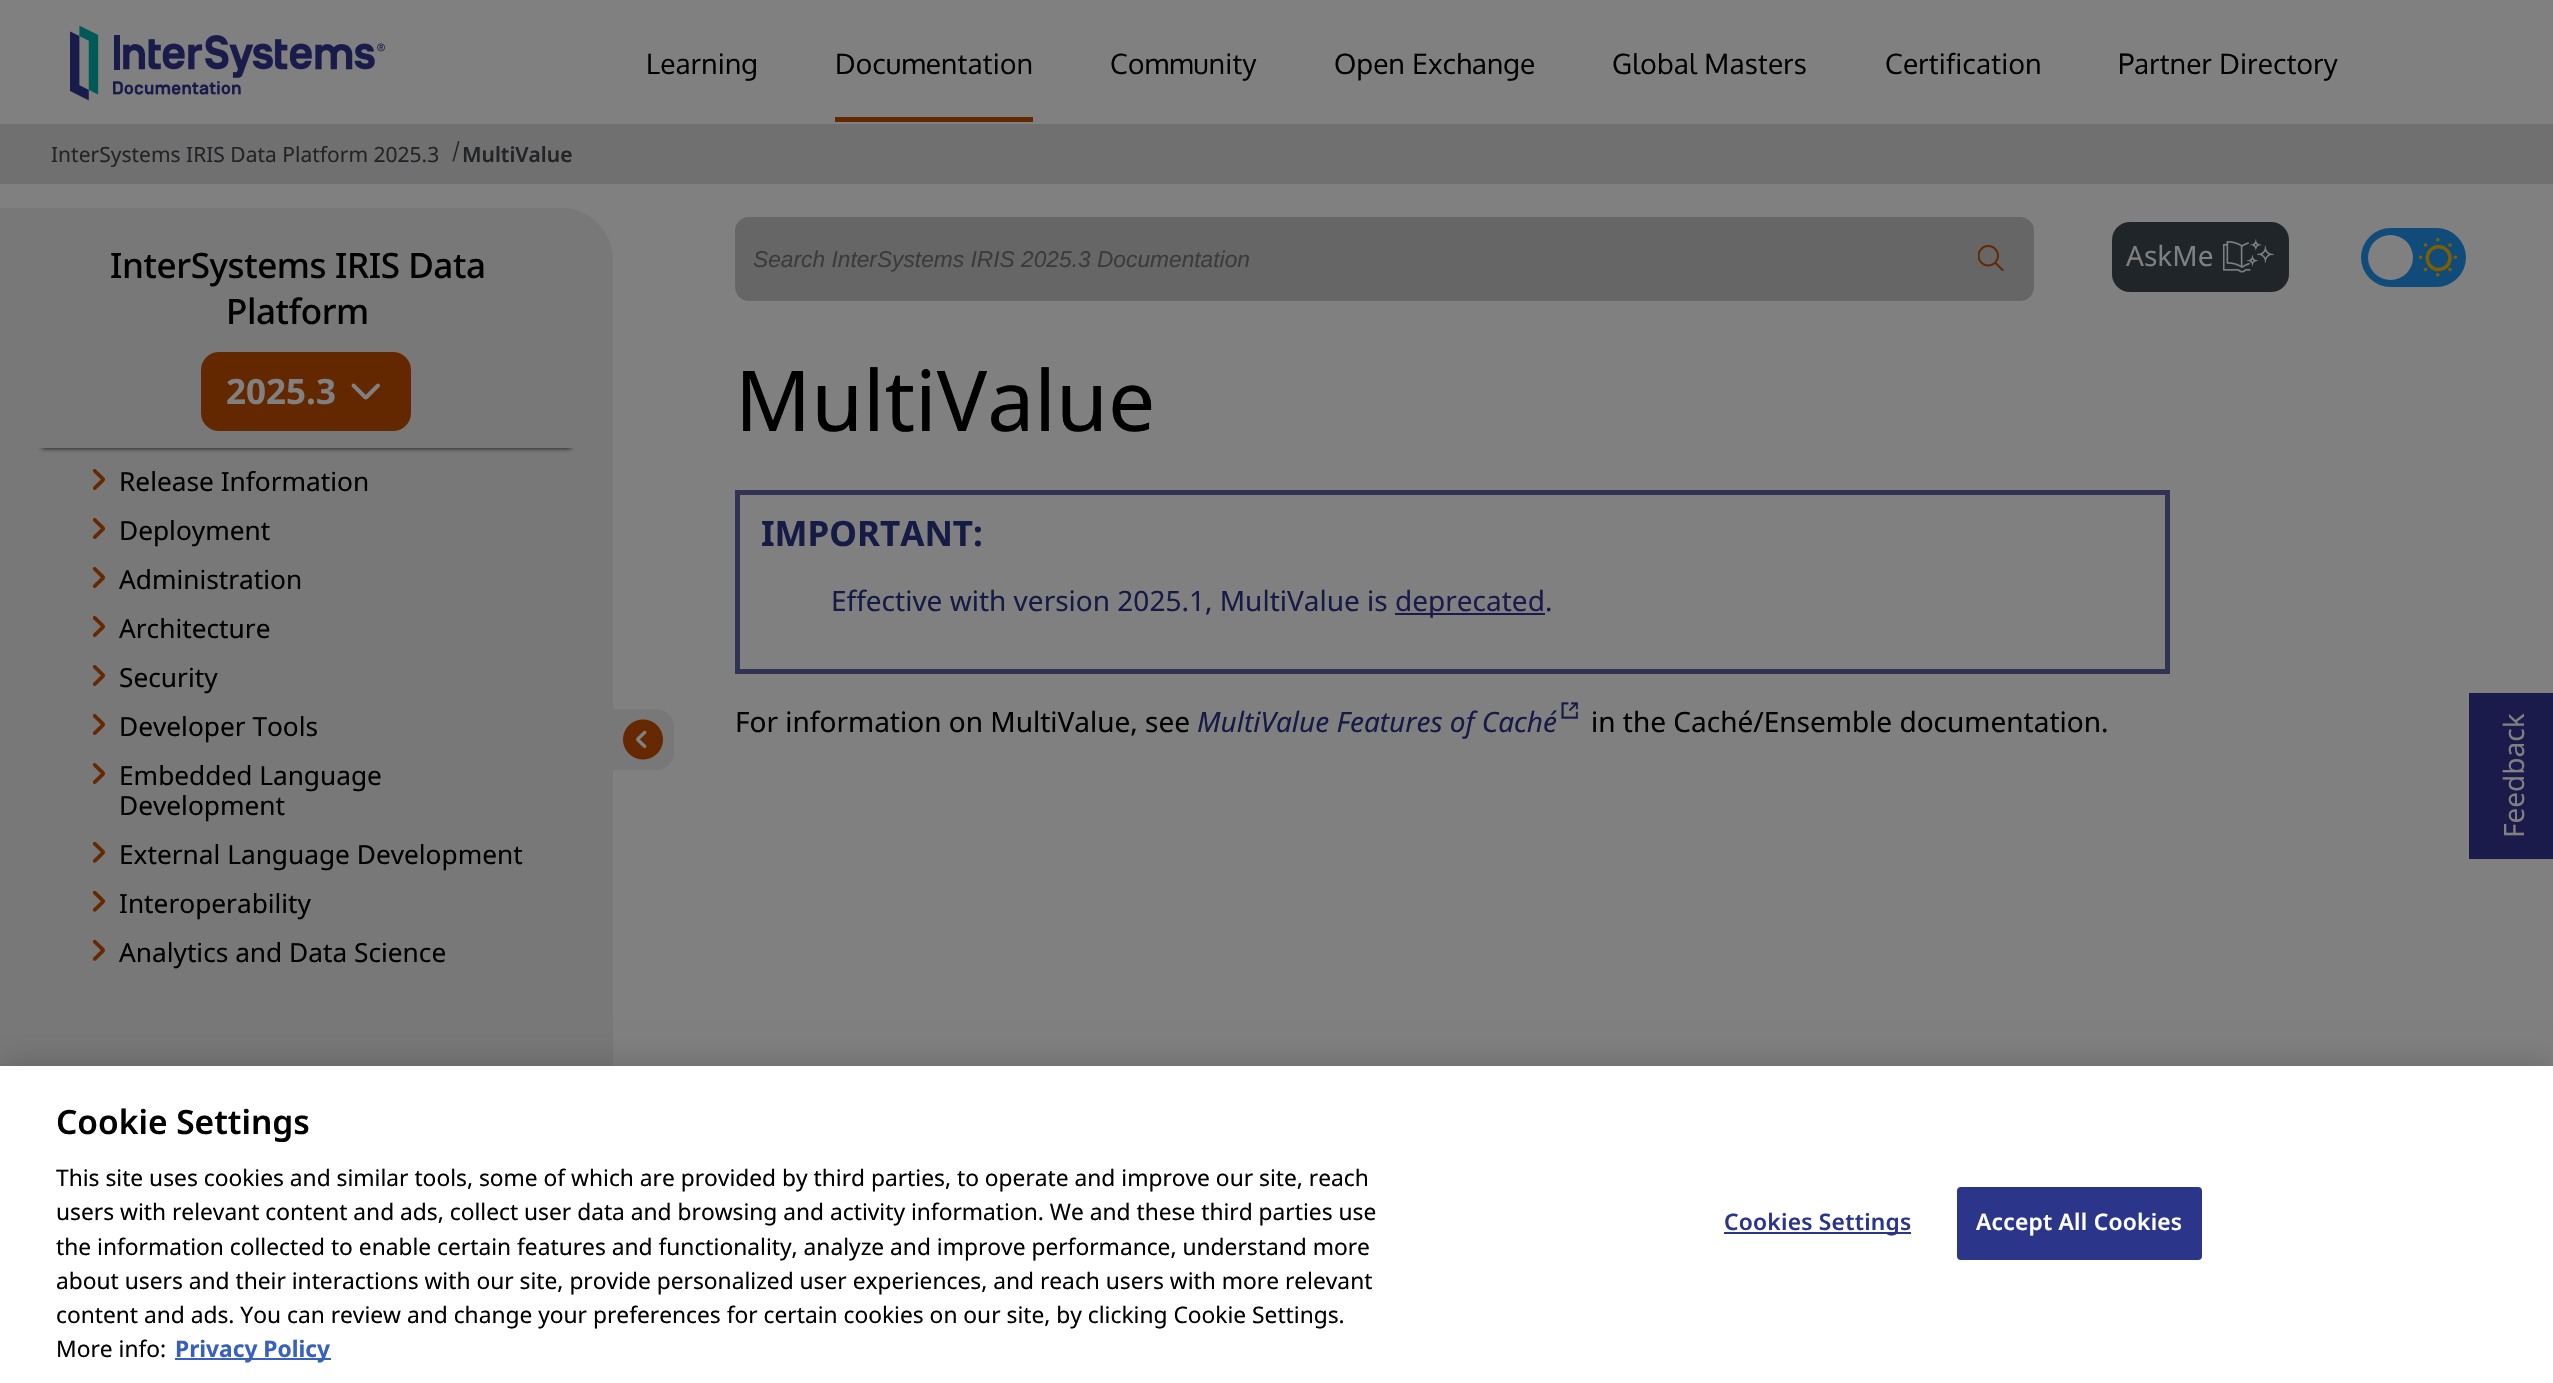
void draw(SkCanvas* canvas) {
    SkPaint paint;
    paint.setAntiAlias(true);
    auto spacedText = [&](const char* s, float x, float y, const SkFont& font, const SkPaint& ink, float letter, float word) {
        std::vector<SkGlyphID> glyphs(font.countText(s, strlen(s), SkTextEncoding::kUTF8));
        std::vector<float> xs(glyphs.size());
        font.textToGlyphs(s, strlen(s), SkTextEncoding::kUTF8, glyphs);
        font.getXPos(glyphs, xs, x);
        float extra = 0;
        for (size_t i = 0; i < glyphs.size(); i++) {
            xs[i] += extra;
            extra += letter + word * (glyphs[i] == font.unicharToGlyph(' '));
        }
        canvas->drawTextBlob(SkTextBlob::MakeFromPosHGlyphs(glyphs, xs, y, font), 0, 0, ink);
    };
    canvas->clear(0xFF808080);
    canvas->drawImageRect(SkImages::DeferredFromEncodedData(SkData::MakeFromFileName("img1.png")), SkRect::MakeXYWH(70, 25, 315, 76), SkSamplingOptions());
    SkFont font1(fontMgr->matchFamilyStyle("Oxygen", SkFontStyle::Normal()), 28);
    font1.setSubpixel(true);
    paint.setColor(0xFF000000);
    spacedText("Learning", 646, 74, font1, paint, 0.25f, 0);
    paint.setColor(0xFF642800);
    canvas->drawRect(SkRect::MakeXYWH(835, 117, 198, 5), paint);
    paint.setColor(0xFF000000);
    spacedText("Documentation", 835, 74, font1, paint, 0.25f, 0);
    spacedText("Community", 1110, 74, font1, paint, 0.25f, 0);
    spacedText("Open Exchange", 1334, 74, font1, paint, 0.25f, 0);
    spacedText("Global Masters", 1612, 74, font1, paint, 0.25f, 0);
    spacedText("Certification", 1885, 74, font1, paint, 0.25f, 0);
    spacedText("Partner Directory", 2118, 74, font1, paint, 0.25f, 0);
    paint.setColor(0xFF707070);
    canvas->drawRect(SkRect::MakeXYWH(0, 124, 2553, 60), paint);
    SkFont font2(fontMgr->matchFamilyStyle("Noto Sans", SkFontStyle::Normal()), 21);
    font2.setSubpixel(true);
    paint.setColor(0xFF222427);
    canvas->drawString("InterSystems IRIS Data Platform 2025.3", 51, 162, font2, paint);
    paint.setColor(0xFF222426);
    canvas->drawPath(SkPathBuilder().moveTo(458, 141).lineTo(459.5f, 141.5f).lineTo(454, 161.5f).lineTo(452.5f, 161.5f).close().detach(), paint);
    SkFont font3(fontMgr->matchFamilyStyle("Noto Sans", SkFontStyle(600, SkFontStyle::kNormal_Width, SkFontStyle::kUpright_Slant)), 21);
    font3.setSubpixel(true);
    paint.setColor(0xFF222427);
    canvas->drawString("MultiValue", 462, 162, font3, paint);
    paint.setColor(0xFF787879);
    canvas->drawPath(SkPathBuilder().moveTo(0, 208).lineTo(560, 208).cubicTo(589.5f, 208, 613, 231.5f, 613, 261).lineTo(613, 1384).lineTo(0, 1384).close().detach(), paint);
    paint.setColor(0xFF0B0B0B);
    paint.setMaskFilter(SkMaskFilter::MakeBlur(kNormal_SkBlurStyle, 2.5f));
    canvas->drawRect(SkRect::MakeXYWH(42, 292, 529, 156), paint);
    paint.setMaskFilter(nullptr);
    paint.setColor(0xFF787879);
    canvas->drawPath(SkPathBuilder().moveTo(0, 208).lineTo(560, 208).cubicTo(589.5f, 208, 613, 231.5f, 613, 261).lineTo(613, 448).lineTo(0, 448).close().detach(), paint);
    SkFont font4(fontMgr->matchFamilyStyle("Noto Sans", SkFontStyle(500, SkFontStyle::kNormal_Width, SkFontStyle::kUpright_Slant)), 35);
    font4.setSubpixel(true);
    paint.setColor(0xFF000000);
    spacedText("InterSystems IRIS Data", 110, 278, font4, paint, -0.4f, 0);
    spacedText("Platform", 226, 324, font4, paint, -0.4f, 0);
    paint.setColor(0xFF642800);
    canvas->drawRoundRect(SkRect::MakeXYWH(201, 352, 210, 79), 18, 18, paint);
    SkFont font5(fontMgr->matchFamilyStyle("Noto Sans", SkFontStyle::Bold()), 35);
    font5.setSubpixel(true);
    paint.setColor(0xFF808080);
    canvas->drawString("2025.3", 226, 404, font5, paint);
    paint.setStyle(SkPaint::kStroke_Style);
    paint.setStrokeWidth(3.9f);
    paint.setStrokeCap(SkPaint::kRound_Cap);
    canvas->drawPath(SkPathBuilder().moveTo(378, 385.5f).lineTo(366.5f, 397).cubicTo(366, 397.5f, 365.5f, 397.5f, 365, 397).lineTo(353.5f, 385.5f).detach(), paint);
    canvas->drawImageRect(SkImages::DeferredFromEncodedData(SkData::MakeFromFileName("img2.png")), SkRect::MakeXYWH(93, 469, 12, 21), SkSamplingOptions());
    SkFont font6(fontMgr->matchFamilyStyle("Noto Sans", SkFontStyle::Normal()), 26.25f);
    font6.setSubpixel(true);
    paint.setStyle(SkPaint::kFill_Style);
    paint.setColor(0xFF000000);
    canvas->drawString("Release Information", 119, 491, font6, paint);
    canvas->drawImageRect(SkImages::DeferredFromEncodedData(SkData::MakeFromFileName("img2.png")), SkRect::MakeXYWH(93, 518, 12, 21), SkSamplingOptions());
    canvas->drawString("Deployment", 119, 540, font6, paint);
    canvas->drawImageRect(SkImages::DeferredFromEncodedData(SkData::MakeFromFileName("img2.png")), SkRect::MakeXYWH(93, 567, 12, 21), SkSamplingOptions());
    canvas->drawString("Administration", 119, 589, font6, paint);
    canvas->drawImageRect(SkImages::DeferredFromEncodedData(SkData::MakeFromFileName("img2.png")), SkRect::MakeXYWH(93, 616, 12, 21), SkSamplingOptions());
    canvas->drawString("Architecture", 119, 638, font6, paint);
    canvas->drawImageRect(SkImages::DeferredFromEncodedData(SkData::MakeFromFileName("img2.png")), SkRect::MakeXYWH(93, 665, 12, 21), SkSamplingOptions());
    canvas->drawString("Security", 119, 687, font6, paint);
    canvas->drawImageRect(SkImages::DeferredFromEncodedData(SkData::MakeFromFileName("img2.png")), SkRect::MakeXYWH(93, 714, 12, 21), SkSamplingOptions());
    canvas->drawString("Developer Tools", 119, 736, font6, paint);
    canvas->drawImageRect(SkImages::DeferredFromEncodedData(SkData::MakeFromFileName("img2.png")), SkRect::MakeXYWH(93, 763, 12, 21), SkSamplingOptions());
    canvas->drawString("Embedded Language", 119, 785, font6, paint);
    canvas->drawString("Development", 119, 815, font6, paint);
    canvas->drawImageRect(SkImages::DeferredFromEncodedData(SkData::MakeFromFileName("img3.png")), SkRect::MakeXYWH(93, 842, 12, 21), SkSamplingOptions());
    canvas->drawString("External Language Development", 119, 864, font6, paint);
    canvas->drawImageRect(SkImages::DeferredFromEncodedData(SkData::MakeFromFileName("img3.png")), SkRect::MakeXYWH(93, 891, 12, 21), SkSamplingOptions());
    canvas->drawString("Interoperability", 119, 913, font6, paint);
    canvas->drawImageRect(SkImages::DeferredFromEncodedData(SkData::MakeFromFileName("img3.png")), SkRect::MakeXYWH(93, 940, 12, 21), SkSamplingOptions());
    canvas->drawString("Analytics and Data Science", 119, 962, font6, paint);
    paint.setColor(0xFF666666);
    canvas->drawRoundRect(SkRect::MakeXYWH(735, 217, 1299, 84), 14, 14, paint);
    SkFont font7(fontMgr->matchFamilyStyle("Liberation Sans", SkFontStyle::Italic()), 22.75f);
    font7.setSubpixel(true);
    paint.setColor(0xFF3B3B3B);
    canvas->drawString("Search InterSystems IRIS 2025.3 Documentation", 753, 267, font7, paint);
    canvas->drawImageRect(SkImages::DeferredFromEncodedData(SkData::MakeFromFileName("img4.png")), SkRect::MakeXYWH(1978, 245, 26, 26), SkSamplingOptions());
    paint.setColor(0xFF1F2529);
    canvas->drawRoundRect(SkRect::MakeXYWH(2112, 222, 177, 70), 18, 18, paint);
    SkFont font8(fontMgr->matchFamilyStyle("Noto Sans", SkFontStyle::Normal()), 28);
    font8.setSubpixel(true);
    paint.setColor(0xFF808080);
    canvas->drawString("AskMe", 2126, 266, font8, paint);
    canvas->drawImageRect(SkImages::DeferredFromEncodedData(SkData::MakeFromFileName("img5.png")), SkRect::MakeXYWH(2223, 239, 51, 34), SkSamplingOptions());
    paint.setColor(0xFF114B7A);
    canvas->drawRoundRect(SkRect::MakeXYWH(2361, 228, 105, 59), 29.5f, 29.5f, paint);
    paint.setColor(0xFF808080);
    canvas->drawCircle(2390.5f, 257.5f, 22.5f, paint);
    canvas->drawImageRect(SkImages::DeferredFromEncodedData(SkData::MakeFromFileName("img6.png")), SkRect::MakeXYWH(2419, 238, 38, 39), SkSamplingOptions());
    paint.setColor(0xFF787879);
    canvas->drawPath(SkPathBuilder().moveTo(613, 709).lineTo(656, 709).cubicTo(666, 709, 674, 717, 674, 727).lineTo(674, 752).cubicTo(674, 762, 666, 770, 656, 770).lineTo(613, 770).close().detach(), paint);
    canvas->drawImageRect(SkImages::DeferredFromEncodedData(SkData::MakeFromFileName("img7.png")), SkRect::MakeXYWH(623, 719, 40, 41), SkSamplingOptions());
    SkFont font9(fontMgr->matchFamilyStyle("Noto Sans", SkFontStyle::Normal()), 84);
    font9.setSubpixel(true);
    paint.setColor(0xFF000000);
    canvas->drawString("MultiValue", 735, 431, font9, paint);
    paint.setStyle(SkPaint::kStroke_Style);
    paint.setStrokeWidth(5);
    paint.setStrokeCap(SkPaint::kButt_Cap);
    paint.setColor(0xFF303352);
    canvas->drawRect(SkRect::MakeXYWH(737.5f, 492.5f, 1430, 179), paint);
    paint.setStyle(SkPaint::kFill_Style);
    paint.setColor(0xFF161B45);
    canvas->drawString("IMPORTANT:", 761, 546, font5, paint);
    canvas->drawString("Effective with version 2025.1, MultiValue is", 831, 611, font8, paint);
    paint.setColor(0xFF1A1B4B);
    canvas->drawRect(SkRect::MakeXYWH(1395, 613, 150, 2), paint);
    canvas->drawString("deprecated", 1395, 611, font8, paint);
    paint.setColor(0xFF161B45);
    canvas->drawString(".", 1545, 611, font8, paint);
    paint.setColor(0xFF000000);
    canvas->drawString("For information on MultiValue, see", 735, 732, font8, paint);
    SkFont font10(fontMgr->matchFamilyStyle("Noto Sans", SkFontStyle::Italic()), 28);
    font10.setSubpixel(true);
    paint.setColor(0xFF161B45);
    canvas->drawString("MultiValue Features of Caché", 1197, 732, font10, paint);
    canvas->drawImageRect(SkImages::DeferredFromEncodedData(SkData::MakeFromFileName("img8.png")), SkRect::MakeXYWH(1561, 702, 17, 17), SkSamplingOptions());
    paint.setColor(0xFF000000);
    canvas->drawString("in the Caché/Ensemble documentation.", 1591, 732, font8, paint);
    paint.setColor(0xFF1A1B4B);
    canvas->drawRect(SkRect::MakeXYWH(2469, 693, 84, 166), paint);
    paint.setColor(0xFF808080);
    canvas->save();
    canvas->rotate(-90, 2524, 838);
    canvas->drawString("Feedback", 2524, 838, font8, paint);
    canvas->restore();
    paint.setColor(0x33000000);
    paint.setMaskFilter(SkMaskFilter::MakeBlur(kNormal_SkBlurStyle, 16));
    canvas->drawRect(SkRect::MakeXYWH(0, 1066, 2553, 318), paint);
    paint.setMaskFilter(nullptr);
    paint.setColor(0xFFFFFFFF);
    canvas->drawRect(SkRect::MakeXYWH(0, 1066, 2553, 317), paint);
    SkFont font11(fontMgr->matchFamilyStyle("Noto Sans", SkFontStyle(600, SkFontStyle::kNormal_Width, SkFontStyle::kUpright_Slant)), 33.5f);
    font11.setSubpixel(true);
    paint.setColor(0xFF000000);
    canvas->drawString("Cookie Settings", 56, 1134, font11, paint);
    SkFont font12(fontMgr->matchFamilyStyle("Noto Sans", SkFontStyle::Normal()), 22.75f);
    font12.setSubpixel(true);
    canvas->drawString("This site uses cookies and similar tools, some of which are provided by third parties, to operate and improve our site, reach", 56, 1186, font12, paint);
    canvas->drawString("users with relevant content and ads, collect user data and browsing and activity information. We and these third parties use", 56, 1220, font12, paint);
    canvas->drawString("the information collected to enable certain features and functionality, analyze and improve performance, understand more", 56, 1255, font12, paint);
    canvas->drawString("about users and their interactions with our site, provide personalized user experiences, and reach users with more relevant", 56, 1289, font12, paint);
    canvas->drawString("content and ads. You can review and change your preferences for certain cookies on our site, by clicking Cookie Settings.", 56, 1323, font12, paint);
    canvas->drawString("More info:", 56, 1357, font12, paint);
    paint.setColor(0xFF3860BE);
    canvas->drawRect(SkRect::MakeXYWH(175, 1358, 156, 2), paint);
    SkFont font13(fontMgr->matchFamilyStyle("Noto Sans", SkFontStyle::Bold()), 22.75f);
    font13.setSubpixel(true);
    canvas->drawString("Privacy Policy", 175, 1357, font13, paint);
    paint.setColor(0xFF2B3589);
    canvas->drawRect(SkRect::MakeXYWH(1724, 1232, 187, 2), paint);
    SkFont font14(fontMgr->matchFamilyStyle("Noto Sans", SkFontStyle(600, SkFontStyle::kNormal_Width, SkFontStyle::kUpright_Slant)), 22.75f);
    font14.setSubpixel(true);
    spacedText("Cookies Settings", 1724, 1230, font14, paint, 0.25f, 0);
    canvas->drawRoundRect(SkRect::MakeXYWH(1958, 1188, 243, 71), 3, 3, paint);
    paint.setStyle(SkPaint::kStroke_Style);
    paint.setStrokeWidth(2);
    canvas->drawRoundRect(SkRect::MakeXYWH(1958, 1188, 243, 71), 3, 3, paint);
    paint.setStyle(SkPaint::kFill_Style);
    paint.setColor(0xFFFFFFFF);
    spacedText("Accept All Cookies", 1976, 1230, font14, paint, 0.25f, 0);
}
